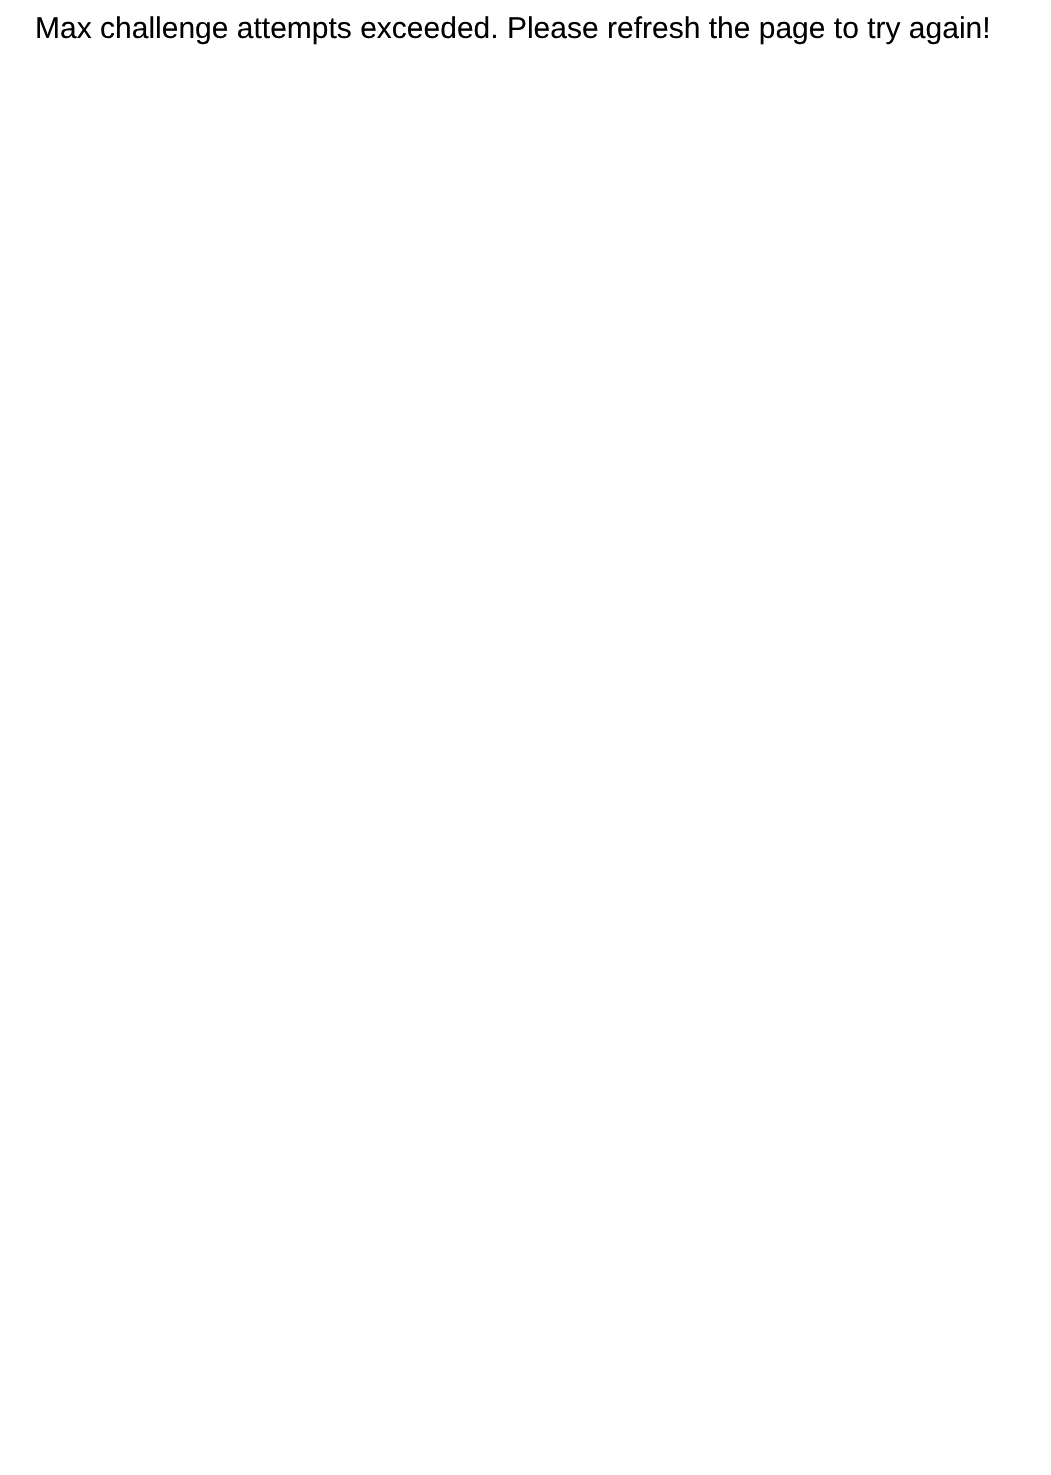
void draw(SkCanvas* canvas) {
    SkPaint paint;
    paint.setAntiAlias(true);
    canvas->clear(0xFFFFFFFF);
    SkFont font1(fontMgr->matchFamilyStyle("Liberation Sans", SkFontStyle::Normal()), 30);
    font1.setSubpixel(true);
    paint.setColor(0xFF000000);
    canvas->drawString("Max challenge attempts exceeded. Please refresh the page to try again!", 35, 38, font1, paint);
}
